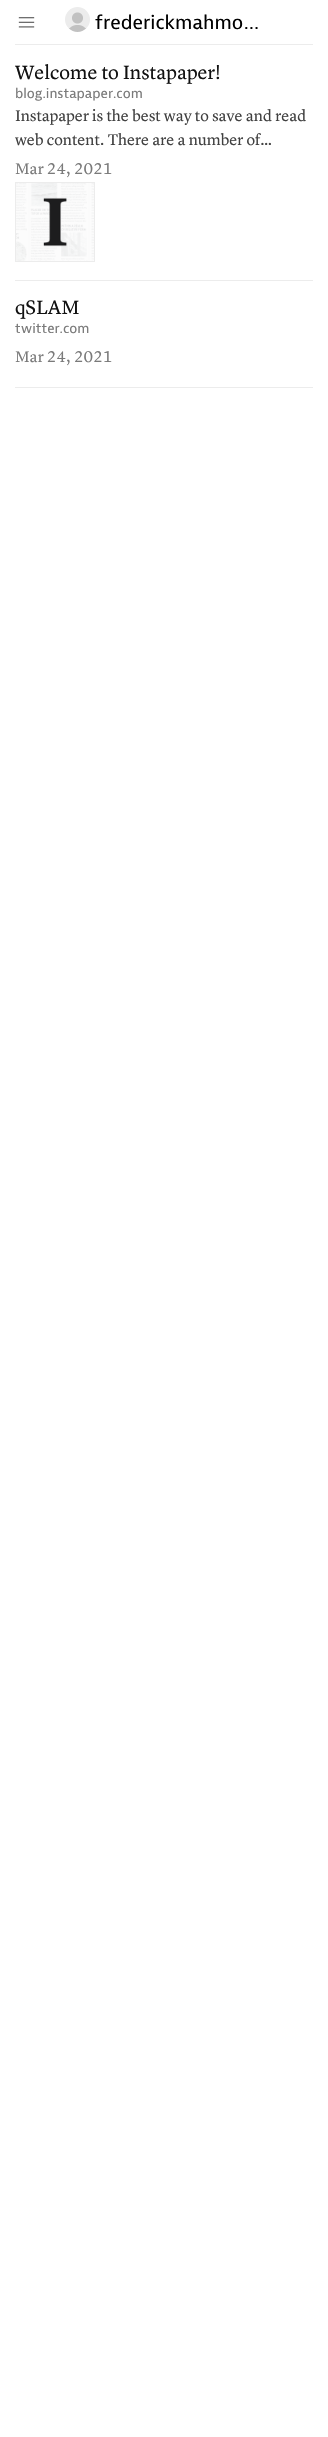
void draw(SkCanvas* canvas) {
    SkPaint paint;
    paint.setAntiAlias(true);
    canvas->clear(0xFFFFFFFF);
    paint.setColor(0xFFECECEC);
    canvas->drawRect(SkRect::MakeXYWH(15, 44, 298, 1), paint);
    canvas->drawImageRect(SkImages::DeferredFromEncodedData(SkData::MakeFromFileName("img1.png")), SkRect::MakeXYWH(18, 17, 17, 11), SkSamplingOptions());
    canvas->drawImageRect(SkImages::DeferredFromEncodedData(SkData::MakeFromFileName("img2.png")), SkRect::MakeXYWH(65, 7, 25, 25), SkSamplingOptions());
    SkFont font1(fontMgr->matchFamilyStyle("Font", SkFontStyle::Normal()), 20);
    font1.setSubpixel(true);
    paint.setColor(0xFF000000);
    canvas->drawString("frederickmahmo…", 95, 29, font1, paint);
    paint.setColor(0xFFECECEC);
    canvas->drawRect(SkRect::MakeXYWH(15, 280, 298, 1), paint);
    SkFont font2(fontMgr->matchFamilyStyle("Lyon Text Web", SkFontStyle::Normal()), 20);
    font2.setSubpixel(true);
    paint.setColor(0xFF111111);
    canvas->drawString("Welcome to Instapaper!", 15, 79, font2, paint);
    SkFont font3(fontMgr->matchFamilyStyle("Font", SkFontStyle::Normal()), 14);
    font3.setSubpixel(true);
    paint.setColor(0xFF7A7A7A);
    canvas->drawString("blog.instapaper.com", 15, 98, font3, paint);
    SkFont font4(fontMgr->matchFamilyStyle("Lyon Text Web", SkFontStyle::Normal()), 16);
    font4.setSubpixel(true);
    paint.setColor(0xFF404040);
    canvas->drawString("Instapaper is the best way to save and read", 15, 121, font4, paint);
    canvas->drawString("web content. There are a number of…", 15, 145, font4, paint);
    paint.setColor(0xFF7A7A7A);
    canvas->drawString("Mar 24, 2021", 15, 174, font4, paint);
    canvas->drawImageRect(SkImages::DeferredFromEncodedData(SkData::MakeFromFileName("img3.png")), SkRect::MakeXYWH(16, 183, 78, 78), SkSamplingOptions());
    paint.setStyle(SkPaint::kStroke_Style);
    paint.setStrokeWidth(1);
    paint.setColor(0xFFECECEC);
    canvas->drawRect(SkRect::MakeXYWH(15.5f, 182.5f, 79, 79), paint);
    paint.setStyle(SkPaint::kFill_Style);
    canvas->drawRect(SkRect::MakeXYWH(15, 387, 298, 1), paint);
    paint.setColor(0xFF111111);
    canvas->drawString("qSLAM", 15, 314, font2, paint);
    paint.setColor(0xFF7A7A7A);
    canvas->drawString("twitter.com", 15, 333, font3, paint);
    canvas->drawString("Mar 24, 2021", 15, 362, font4, paint);
}
